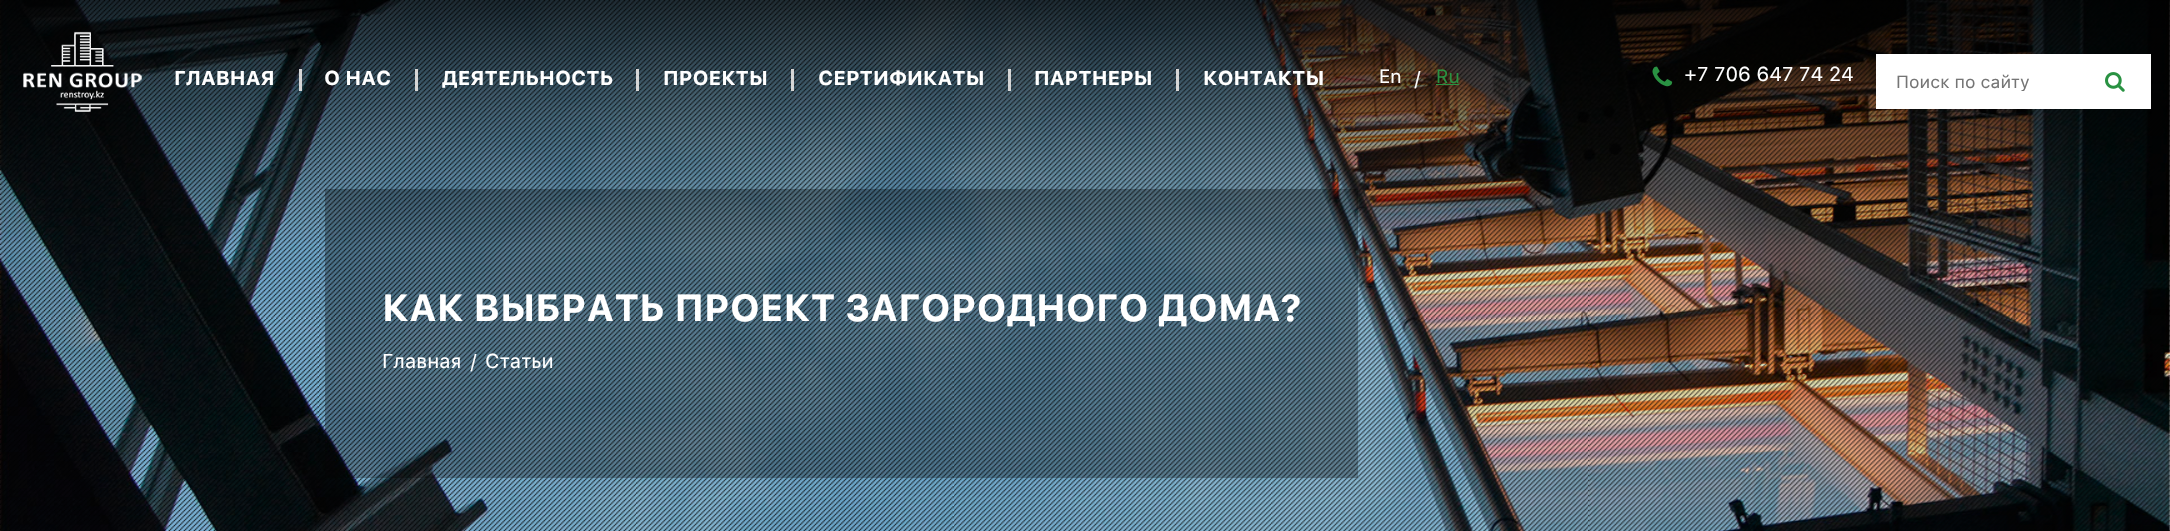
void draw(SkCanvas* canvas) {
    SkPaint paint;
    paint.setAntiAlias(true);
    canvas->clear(0xFFFFFFFF);
    canvas->drawImageRect(SkImages::DeferredFromEncodedData(SkData::MakeFromFileName("img4.png")), SkRect::MakeXYWH(0, 0, 2170, 531), SkSamplingOptions());
    canvas->drawImageRect(SkImages::DeferredFromEncodedData(SkData::MakeFromFileName("img5.png")), SkRect::MakeXYWH(0, 0, 2170, 531), SkSamplingOptions());
    {
        const SkColor colors[] = {0xBF000000, 0x00000000};
        const float stops[] = {0, 1};
        const SkPoint ends[] = {{1085, 0}, {1085, 250}};
        paint.setShader(SkGradientShader::MakeLinear(ends, colors, stops, 2, SkTileMode::kClamp));
        paint.setAlpha(255);
    }
    canvas->drawRect(SkRect::MakeXYWH(0, 0, 2170, 243), paint);
    canvas->drawImageRect(SkImages::DeferredFromEncodedData(SkData::MakeFromFileName("img1.png")), SkRect::MakeXYWH(23, 31, 119, 81), SkSamplingOptions());
    SkFont font1(fontMgr->matchFamilyStyle("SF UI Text", SkFontStyle::Bold()), 20);
    font1.setSubpixel(true);
    paint.setShader(nullptr);
    paint.setColor(0xFFFFFFFF);
    canvas->drawString("ГЛАВНАЯ", 174, 85, font1, paint);
    paint.setColor(0xFFD6D6D6);
    canvas->drawRect(SkRect::MakeXYWH(299, 69, 3, 22), paint);
    paint.setColor(0xFFFFFFFF);
    canvas->drawString("О НАС", 324, 85, font1, paint);
    paint.setColor(0xFFD6D6D6);
    canvas->drawRect(SkRect::MakeXYWH(415, 69, 3, 22), paint);
    paint.setColor(0xFFFFFFFF);
    canvas->drawString("ДЕЯТЕЛЬНОСТЬ", 442, 85, font1, paint);
    paint.setColor(0xFFD6D6D6);
    canvas->drawRect(SkRect::MakeXYWH(636, 69, 3, 22), paint);
    paint.setColor(0xFFFFFFFF);
    canvas->drawString("ПРОЕКТЫ", 663, 85, font1, paint);
    paint.setColor(0xFFD6D6D6);
    canvas->drawRect(SkRect::MakeXYWH(791, 69, 3, 22), paint);
    paint.setColor(0xFFFFFFFF);
    canvas->drawString("СЕРТИФИКАТЫ", 818, 85, font1, paint);
    paint.setColor(0xFFD6D6D6);
    canvas->drawRect(SkRect::MakeXYWH(1008, 69, 3, 22), paint);
    paint.setColor(0xFFFFFFFF);
    canvas->drawString("ПАРТНЕРЫ", 1034, 85, font1, paint);
    paint.setColor(0xFFD6D6D6);
    canvas->drawRect(SkRect::MakeXYWH(1176, 69, 3, 22), paint);
    paint.setColor(0xFFFFFFFF);
    canvas->drawString("КОНТАКТЫ", 1203, 85, font1, paint);
    SkFont font2(fontMgr->matchFamilyStyle("SF UI Text", SkFontStyle::Normal()), 19);
    font2.setSubpixel(true);
    canvas->drawString("En", 1379, 83, font2, paint);
    SkFont font3(fontMgr->matchFamilyStyle("SF UI Text", SkFontStyle::Normal()), 20);
    font3.setSubpixel(true);
    canvas->drawString("/", 1414, 85, font3, paint);
    paint.setColor(0xFF299242);
    canvas->drawString("Ru", 1436, 83, font2, paint);
    canvas->drawRect(SkRect::MakeXYWH(1436, 84, 23, 1), paint);
    canvas->drawImageRect(SkImages::DeferredFromEncodedData(SkData::MakeFromFileName("img2.png")), SkRect::MakeXYWH(1652, 66, 21, 21), SkSamplingOptions());
    paint.setColor(0xFFFFFFFF);
    canvas->drawString("+7 706 647 74 24", 1684, 81, font3, paint);
    canvas->drawRect(SkRect::MakeXYWH(1876, 54, 275, 55), paint);
    canvas->save();
    canvas->clipRect(SkRect::MakeXYWH(1896, 71, 195, 20));
    SkFont font4(fontMgr->matchFamilyStyle("SF UI Text", SkFontStyle::Normal()), 17.5f);
    font4.setSubpixel(true);
    paint.setColor(0xFF757575);
    canvas->drawString("Поиск по сайту", 1896, 88, font4, paint);
    canvas->restore();
    canvas->drawImageRect(SkImages::DeferredFromEncodedData(SkData::MakeFromFileName("img3.png")), SkRect::MakeXYWH(2105, 72, 20, 20), SkSamplingOptions());
    paint.setColor(0x4D000000);
    canvas->drawRect(SkRect::MakeXYWH(325, 189, 1033, 289), paint);
    SkFont font5(fontMgr->matchFamilyStyle("SF UI Text", SkFontStyle::Bold()), 37.5f);
    font5.setSubpixel(true);
    paint.setColor(0xFFFFFFFF);
    canvas->drawString("КАК ВЫБРАТЬ ПРОЕКТ ЗАГОРОДНОГО ДОМА?", 382, 321, font5, paint);
    canvas->drawString("Главная", 382, 368, font3, paint);
    canvas->drawString("/", 470, 368, font3, paint);
    canvas->drawString("Статьи", 485, 368, font3, paint);
}
